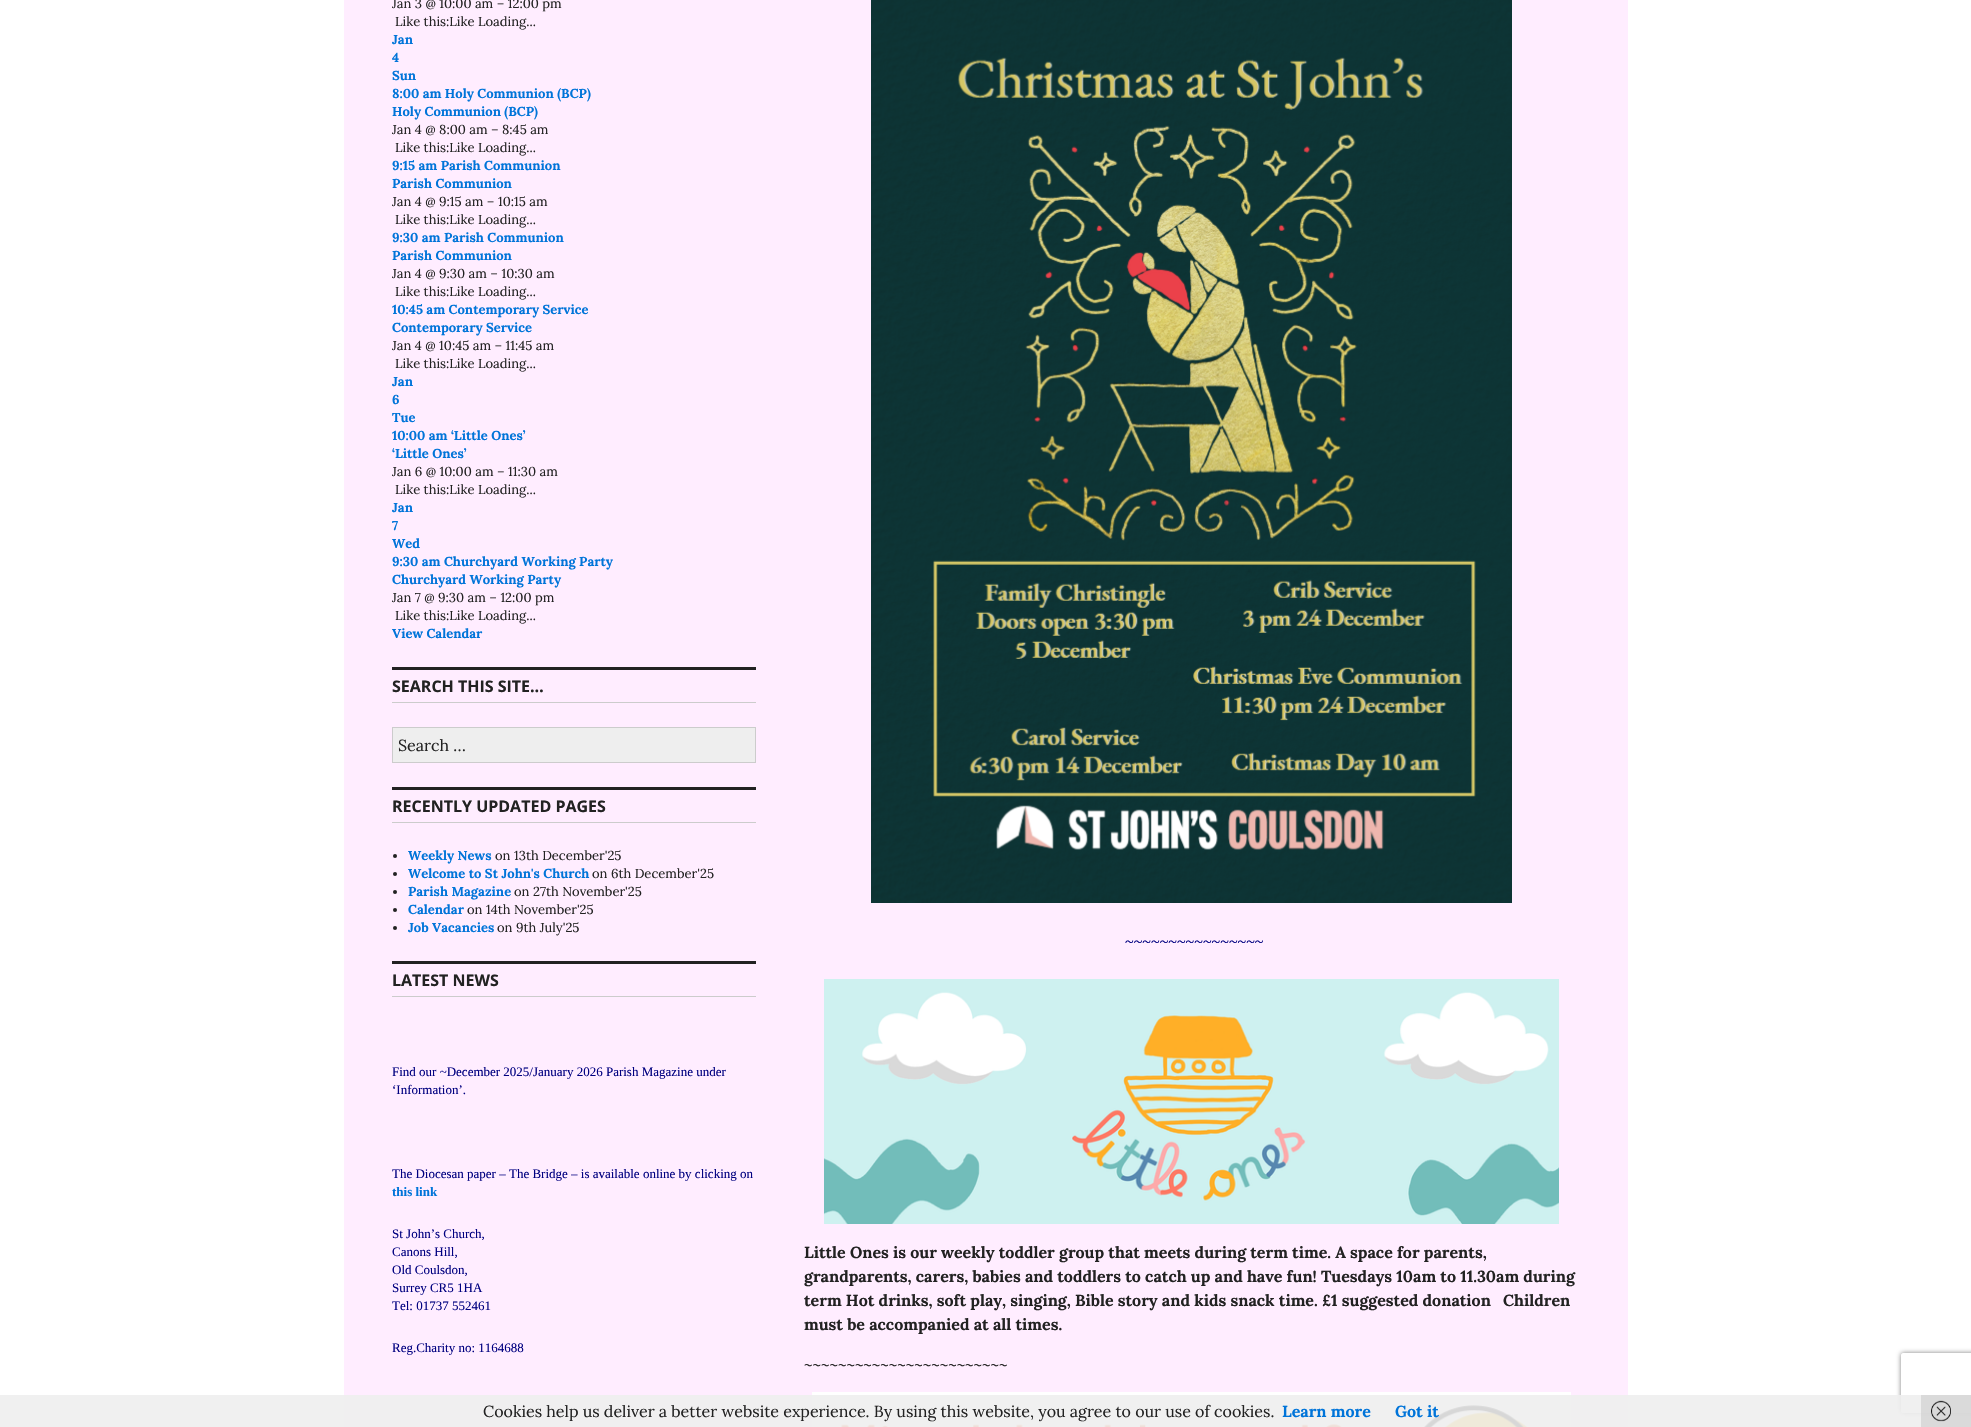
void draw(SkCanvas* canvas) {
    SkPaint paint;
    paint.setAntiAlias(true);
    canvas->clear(0xFFFFFFFF);
    paint.setColor(0xFFFFEDFF);
    canvas->drawRect(SkRect::MakeXYWH(344, 0, 1284, 1427), paint);
    SkFont font1(fontMgr->matchFamilyStyle("Lora", SkFontStyle::Normal()), 13);
    font1.setSubpixel(true);
    paint.setColor(0xFF222222);
    canvas->drawString("Jan 3 @ 10:00 am – 12:00 pm", 392, 8, font1, paint);
    canvas->drawString("Like this:Like Loading...", 395, 26, font1, paint);
    SkFont font2(fontMgr->matchFamilyStyle("Lora", SkFontStyle::Bold()), 13);
    font2.setSubpixel(true);
    paint.setColor(0xFF0074D9);
    canvas->drawString("Jan", 392, 44, font2, paint);
    canvas->drawString("4", 392, 62, font2, paint);
    canvas->drawString("Sun", 392, 80, font2, paint);
    canvas->drawString("8:00 am Holy Communion (BCP)", 392, 98, font2, paint);
    canvas->drawString("Holy Communion (BCP)", 392, 116, font2, paint);
    paint.setColor(0xFF222222);
    canvas->drawString("Jan 4 @ 8:00 am – 8:45 am", 392, 134, font1, paint);
    canvas->drawString("Like this:Like Loading...", 395, 152, font1, paint);
    paint.setColor(0xFF0074D9);
    canvas->drawString("9:15 am Parish Communion", 392, 170, font2, paint);
    canvas->drawString("Parish Communion", 392, 188, font2, paint);
    paint.setColor(0xFF222222);
    canvas->drawString("Jan 4 @ 9:15 am – 10:15 am", 392, 206, font1, paint);
    canvas->drawString("Like this:Like Loading...", 395, 224, font1, paint);
    paint.setColor(0xFF0074D9);
    canvas->drawString("9:30 am Parish Communion", 392, 242, font2, paint);
    canvas->drawString("Parish Communion", 392, 260, font2, paint);
    paint.setColor(0xFF222222);
    canvas->drawString("Jan 4 @ 9:30 am – 10:30 am", 392, 278, font1, paint);
    canvas->drawString("Like this:Like Loading...", 395, 296, font1, paint);
    paint.setColor(0xFF0074D9);
    canvas->drawString("10:45 am Contemporary Service", 392, 314, font2, paint);
    canvas->drawString("Contemporary Service", 392, 332, font2, paint);
    paint.setColor(0xFF222222);
    canvas->drawString("Jan 4 @ 10:45 am – 11:45 am", 392, 350, font1, paint);
    canvas->drawString("Like this:Like Loading...", 395, 368, font1, paint);
    paint.setColor(0xFF0074D9);
    canvas->drawString("Jan", 392, 386, font2, paint);
    canvas->drawString("6", 392, 404, font2, paint);
    canvas->drawString("Tue", 392, 422, font2, paint);
    canvas->drawString("10:00 am ‘Little Ones’", 392, 440, font2, paint);
    canvas->drawString("‘Little Ones’", 392, 458, font2, paint);
    paint.setColor(0xFF222222);
    canvas->drawString("Jan 6 @ 10:00 am – 11:30 am", 392, 476, font1, paint);
    canvas->drawString("Like this:Like Loading...", 395, 494, font1, paint);
    paint.setColor(0xFF0074D9);
    canvas->drawString("Jan", 392, 512, font2, paint);
    canvas->drawString("7", 392, 530, font2, paint);
    canvas->drawString("Wed", 392, 548, font2, paint);
    canvas->drawString("9:30 am Churchyard Working Party", 392, 566, font2, paint);
    canvas->drawString("Churchyard Working Party", 392, 584, font2, paint);
    paint.setColor(0xFF222222);
    canvas->drawString("Jan 7 @ 9:30 am – 12:00 pm", 392, 602, font1, paint);
    canvas->drawString("Like this:Like Loading...", 395, 620, font1, paint);
    paint.setColor(0xFF0074D9);
    canvas->drawString("View Calendar", 392, 638, font2, paint);
    paint.setColor(0xFF222222);
    canvas->drawRect(SkRect::MakeXYWH(392, 667, 364, 3), paint);
    paint.setColor(0xFFCCCCCC);
    canvas->drawRect(SkRect::MakeXYWH(392, 702, 364, 1), paint);
    SkFont font3(fontMgr->matchFamilyStyle("Open Sans", SkFontStyle::Bold()), 16);
    font3.setSubpixel(true);
    paint.setColor(0xFF222222);
    canvas->drawString("SEARCH THIS SITE…", 392, 692, font3, paint);
    paint.setColor(0xFFEEEEEE);
    canvas->drawRect(SkRect::MakeXYWH(392.5f, 727.5f, 363, 35), paint);
    paint.setStyle(SkPaint::kStroke_Style);
    paint.setStrokeWidth(1);
    paint.setColor(0xFFCCCCCC);
    canvas->drawRect(SkRect::MakeXYWH(392.5f, 727.5f, 363, 35), paint);
    SkFont font4(fontMgr->matchFamilyStyle("Lora", SkFontStyle::Normal()), 16);
    font4.setSubpixel(true);
    paint.setStyle(SkPaint::kFill_Style);
    paint.setColor(0xFF222222);
    canvas->drawString("Search …", 398, 751, font4, paint);
    canvas->drawRect(SkRect::MakeXYWH(392, 787, 364, 3), paint);
    paint.setColor(0xFFCCCCCC);
    canvas->drawRect(SkRect::MakeXYWH(392, 822, 364, 1), paint);
    paint.setColor(0xFF222222);
    canvas->drawString("RECENTLY UPDATED PAGES", 392, 812, font3, paint);
    canvas->drawCircle(395, 856, 2, paint);
    paint.setColor(0xFF0074D9);
    canvas->drawString("Weekly News", 408, 860, font2, paint);
    paint.setColor(0xFF222222);
    canvas->drawString("on 13th December'25", 495, 860, font1, paint);
    canvas->drawCircle(395, 874, 2, paint);
    paint.setColor(0xFF0074D9);
    canvas->drawString("Welcome to St John's Church", 408, 878, font2, paint);
    paint.setColor(0xFF222222);
    canvas->drawString("on 6th December'25", 592, 878, font1, paint);
    canvas->drawCircle(395, 892, 2, paint);
    paint.setColor(0xFF0074D9);
    canvas->drawString("Parish Magazine", 408, 896, font2, paint);
    paint.setColor(0xFF222222);
    canvas->drawString("on 27th November'25", 514, 896, font1, paint);
    canvas->drawCircle(395, 910, 2, paint);
    paint.setColor(0xFF0074D9);
    canvas->drawString("Calendar", 408, 914, font2, paint);
    paint.setColor(0xFF222222);
    canvas->drawString("on 14th November'25", 467, 914, font1, paint);
    canvas->drawCircle(395, 928, 2, paint);
    paint.setColor(0xFF0074D9);
    canvas->drawString("Job Vacancies", 408, 932, font2, paint);
    paint.setColor(0xFF222222);
    canvas->drawString("on 9th July'25", 497, 932, font1, paint);
    canvas->drawRect(SkRect::MakeXYWH(392, 961, 364, 3), paint);
    paint.setColor(0xFFCCCCCC);
    canvas->drawRect(SkRect::MakeXYWH(392, 996, 364, 1), paint);
    paint.setColor(0xFF222222);
    canvas->drawString("LATEST NEWS", 392, 986, font3, paint);
    SkFont font5(fontMgr->matchFamilyStyle("Liberation Serif", SkFontStyle::Normal()), 13);
    font5.setSubpixel(true);
    paint.setColor(0xFF000080);
    canvas->drawString("Find our ~December 2025/January 2026 Parish Magazine under", 392, 1076, font5, paint);
    canvas->drawString("‘Information’.", 392, 1094, font5, paint);
    canvas->drawString("The Diocesan paper – The Bridge – is available online by clicking on", 392, 1178, font5, paint);
    SkFont font6(fontMgr->matchFamilyStyle("Liberation Serif", SkFontStyle::Bold()), 13);
    font6.setSubpixel(true);
    paint.setColor(0xFF0074D9);
    canvas->drawString("this link", 392, 1196, font6, paint);
    paint.setColor(0xFF000080);
    canvas->drawString("St John’s Church,", 392, 1238, font5, paint);
    canvas->drawString("Canons Hill,", 392, 1256, font5, paint);
    canvas->drawString("Old Coulsdon,", 392, 1274, font5, paint);
    canvas->drawString("Surrey CR5 1HA", 392, 1292, font5, paint);
    canvas->drawString("Tel: 01737 552461", 392, 1310, font5, paint);
    canvas->drawString("Reg.Charity no: 1164688", 392, 1352, font5, paint);
    canvas->drawImageRect(SkImages::DeferredFromEncodedData(SkData::MakeFromFileName("img1.png")), SkRect::MakeXYWH(871, 0, 641, 903), SkSamplingOptions());
    SkFont font7(fontMgr->matchFamilyStyle("Liberation Serif", SkFontStyle::Normal()), 16);
    font7.setSubpixel(true);
    canvas->drawString("~~~~~~~~~~~~~~~~", 1125, 947, font7, paint);
    canvas->drawImageRect(SkImages::DeferredFromEncodedData(SkData::MakeFromFileName("img2.png")), SkRect::MakeXYWH(824, 979, 735, 245), SkSamplingOptions());
    SkFont font8(fontMgr->matchFamilyStyle("Lora", SkFontStyle::Bold()), 16);
    font8.setSubpixel(true);
    paint.setColor(0xFF222222);
    canvas->drawString("Little Ones is our weekly toddler group that meets during term time. A space for parents,", 804, 1258, font8, paint);
    canvas->drawString("grandparents, carers, babies and toddlers to catch up and have fun! Tuesdays 10am to 11.30am during", 804, 1282, font8, paint);
    canvas->drawString("term Hot drinks, soft play, singing, Bible story and kids snack time. £1 suggested donation", 804, 1306, font8, paint);
    canvas->drawString("Children", 1503, 1306, font8, paint);
    canvas->drawString("must be accompanied at all times.", 804, 1330, font8, paint);
    canvas->drawString("~~~~~~~~~~~~~~~~~~~~~~~~", 804, 1370, font4, paint);
    canvas->drawImageRect(SkImages::DeferredFromEncodedData(SkData::MakeFromFileName("img3.png")), SkRect::MakeXYWH(812, 1392, 759, 35), SkSamplingOptions());
    canvas->save();
    canvas->clipPath(SkPathBuilder(SkPathFillType::kEvenOdd).moveTo(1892, 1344).lineTo(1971, 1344).lineTo(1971, 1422).lineTo(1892, 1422).close().moveTo(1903, 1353).lineTo(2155, 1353).cubicTo(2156, 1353, 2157, 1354, 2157, 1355).lineTo(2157, 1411).cubicTo(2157, 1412, 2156, 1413, 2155, 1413).lineTo(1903, 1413).cubicTo(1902, 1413, 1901, 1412, 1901, 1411).lineTo(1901, 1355).cubicTo(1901, 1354, 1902, 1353, 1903, 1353).close().detach(), true);
    paint.setColor(0xFF808080);
    paint.setMaskFilter(SkMaskFilter::MakeBlur(kNormal_SkBlurStyle, 2.5f));
    canvas->drawRoundRect(SkRect::MakeXYWH(1901, 1353, 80, 60), 2, 2, paint);
    paint.setMaskFilter(nullptr);
    canvas->restore();
    paint.setColor(0xE6EEEEEE);
    canvas->drawRect(SkRect::MakeXYWH(0, 1395, 1971, 32), paint);
    paint.setColor(0xFF222222);
    canvas->drawString("Cookies help us deliver a better website experience. By using this website, you agree to our use of cookies.", 483, 1417, font4, paint);
    paint.setColor(0xFF0074D9);
    canvas->drawString("Learn more", 1282, 1417, font8, paint);
    canvas->drawString("Got it", 1395, 1417, font8, paint);
    paint.setColor(0x99CCCCCC);
    canvas->drawRect(SkRect::MakeXYWH(1921, 1395, 50, 32), paint);
    canvas->drawImageRect(SkImages::DeferredFromEncodedData(SkData::MakeFromFileName("img4.png")), SkRect::MakeXYWH(1931, 1400, 20, 22), SkSamplingOptions());
}
